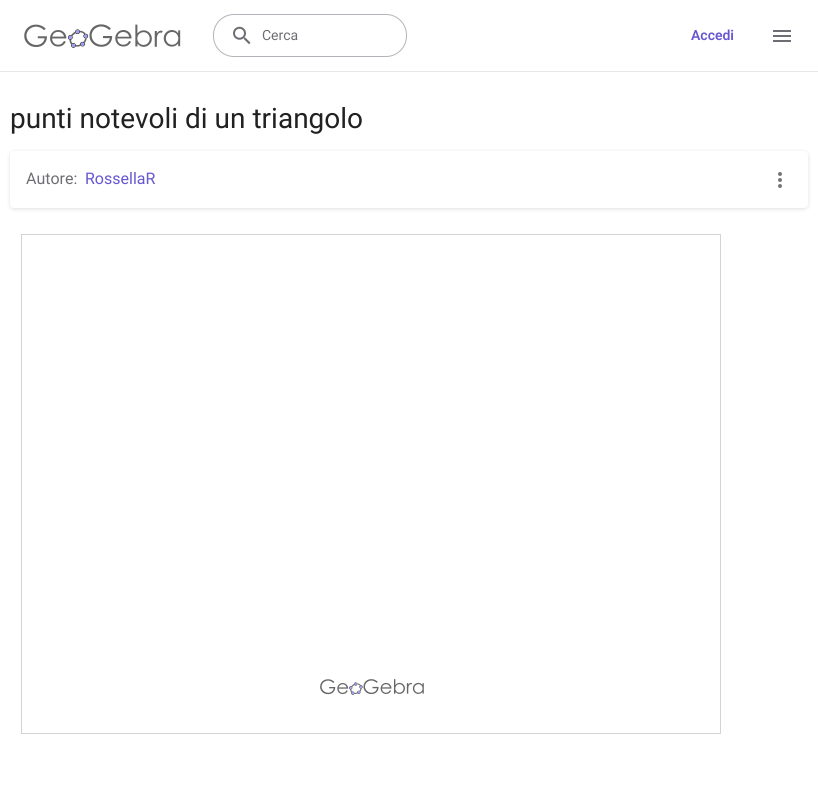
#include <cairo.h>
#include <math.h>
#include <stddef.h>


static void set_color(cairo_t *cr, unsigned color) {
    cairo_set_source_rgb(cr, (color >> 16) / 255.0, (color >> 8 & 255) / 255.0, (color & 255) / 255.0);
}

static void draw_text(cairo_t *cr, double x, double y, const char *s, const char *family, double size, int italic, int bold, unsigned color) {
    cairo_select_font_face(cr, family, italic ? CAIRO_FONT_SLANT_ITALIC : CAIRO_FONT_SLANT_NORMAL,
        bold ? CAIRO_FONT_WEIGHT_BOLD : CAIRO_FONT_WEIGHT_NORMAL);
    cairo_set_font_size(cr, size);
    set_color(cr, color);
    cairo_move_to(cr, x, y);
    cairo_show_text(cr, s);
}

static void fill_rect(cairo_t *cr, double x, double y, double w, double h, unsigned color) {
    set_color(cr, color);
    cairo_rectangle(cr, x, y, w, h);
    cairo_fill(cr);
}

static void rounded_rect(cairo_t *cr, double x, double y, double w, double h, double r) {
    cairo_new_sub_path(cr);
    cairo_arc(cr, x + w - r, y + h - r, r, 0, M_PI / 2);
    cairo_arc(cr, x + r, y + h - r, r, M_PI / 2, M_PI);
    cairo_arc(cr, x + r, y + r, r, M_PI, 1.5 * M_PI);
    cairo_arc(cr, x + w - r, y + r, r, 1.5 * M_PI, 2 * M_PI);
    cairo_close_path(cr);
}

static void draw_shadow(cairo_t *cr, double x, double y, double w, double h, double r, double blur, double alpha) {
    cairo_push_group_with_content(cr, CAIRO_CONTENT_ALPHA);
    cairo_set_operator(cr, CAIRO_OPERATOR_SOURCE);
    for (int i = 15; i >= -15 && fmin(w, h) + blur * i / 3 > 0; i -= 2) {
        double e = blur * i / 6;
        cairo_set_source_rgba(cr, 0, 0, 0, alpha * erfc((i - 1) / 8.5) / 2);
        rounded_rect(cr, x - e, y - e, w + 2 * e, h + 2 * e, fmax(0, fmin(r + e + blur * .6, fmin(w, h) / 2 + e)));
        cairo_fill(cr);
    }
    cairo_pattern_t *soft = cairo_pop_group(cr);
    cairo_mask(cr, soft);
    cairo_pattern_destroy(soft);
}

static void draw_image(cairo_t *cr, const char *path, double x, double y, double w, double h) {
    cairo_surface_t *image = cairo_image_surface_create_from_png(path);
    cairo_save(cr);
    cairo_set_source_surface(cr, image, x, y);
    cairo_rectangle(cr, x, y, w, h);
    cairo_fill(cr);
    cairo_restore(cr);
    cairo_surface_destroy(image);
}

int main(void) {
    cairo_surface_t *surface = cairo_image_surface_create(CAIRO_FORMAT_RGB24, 818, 806);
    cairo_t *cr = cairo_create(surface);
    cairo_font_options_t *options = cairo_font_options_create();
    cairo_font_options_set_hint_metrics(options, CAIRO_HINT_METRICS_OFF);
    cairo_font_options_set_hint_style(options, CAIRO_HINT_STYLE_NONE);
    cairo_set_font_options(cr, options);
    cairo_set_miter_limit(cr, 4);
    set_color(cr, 0xFFFFFF);
    cairo_paint(cr);
    fill_rect(cr, 0, 71, 818, 1, 0xE6E6EB);
    draw_image(cr, "assets/img1.png", 24, 24, 157, 24);
    rounded_rect(cr, 213.5, 14.5, 193, 42, 20.5);
    set_color(cr, 0xB4B3BA);
    cairo_set_line_width(cr, 1);
    cairo_stroke(cr);
    draw_image(cr, "assets/img2.png", 233, 26, 18, 19);
    draw_text(cr, 262, 40, "Cerca", "Roboto", 14, 0, 0, 0x6E6D73);
    draw_text(cr, 691, 40, "Accedi", "Roboto SemiBold", 14, 0, 0, 0x6557D2);
    draw_image(cr, "assets/img3.png", 773, 30, 18, 12);
    draw_text(cr, 10, 128, "punti notevoli di un triangolo", "Roboto", 28, 0, 0, 0x212121);
    set_color(cr, 0x1C1C1F);
    draw_shadow(cr, 10, 152, 798, 57, 4, 2, 0.14);
    set_color(cr, 0xFFFFFF);
    rounded_rect(cr, 10, 151, 798, 57, 4);
    cairo_fill(cr);
    draw_text(cr, 26, 184, "Autore:", "Roboto", 16, 0, 0, 0x6E6D73);
    draw_text(cr, 85, 184, "RossellaR", "Roboto", 16, 0, 0, 0x6557D2);
    draw_image(cr, "assets/img4.png", 778, 172, 4, 16);
    draw_image(cr, "assets/img5.png", 320, 679, 104, 16);
    cairo_rectangle(cr, 21.5, 234.5, 699, 499);
    set_color(cr, 0xD3D3D3);
    cairo_stroke(cr);
    cairo_surface_write_to_png(surface, "output.png");
    cairo_font_options_destroy(options);
    cairo_destroy(cr);
    cairo_surface_destroy(surface);
    return 0;
}
